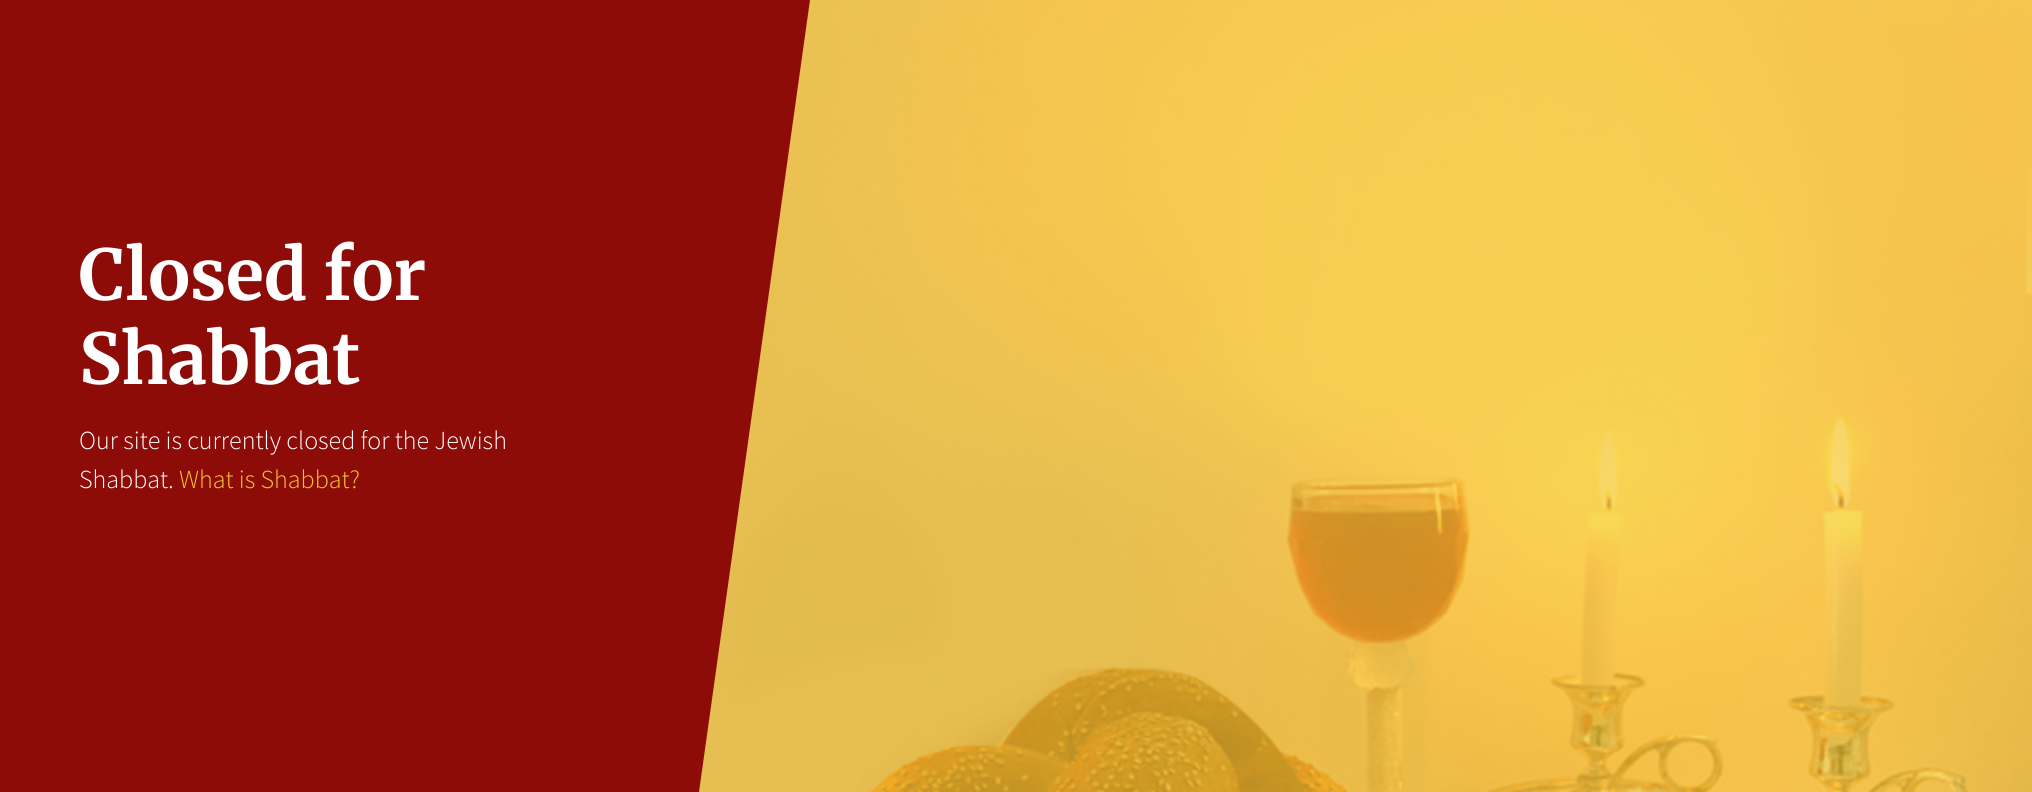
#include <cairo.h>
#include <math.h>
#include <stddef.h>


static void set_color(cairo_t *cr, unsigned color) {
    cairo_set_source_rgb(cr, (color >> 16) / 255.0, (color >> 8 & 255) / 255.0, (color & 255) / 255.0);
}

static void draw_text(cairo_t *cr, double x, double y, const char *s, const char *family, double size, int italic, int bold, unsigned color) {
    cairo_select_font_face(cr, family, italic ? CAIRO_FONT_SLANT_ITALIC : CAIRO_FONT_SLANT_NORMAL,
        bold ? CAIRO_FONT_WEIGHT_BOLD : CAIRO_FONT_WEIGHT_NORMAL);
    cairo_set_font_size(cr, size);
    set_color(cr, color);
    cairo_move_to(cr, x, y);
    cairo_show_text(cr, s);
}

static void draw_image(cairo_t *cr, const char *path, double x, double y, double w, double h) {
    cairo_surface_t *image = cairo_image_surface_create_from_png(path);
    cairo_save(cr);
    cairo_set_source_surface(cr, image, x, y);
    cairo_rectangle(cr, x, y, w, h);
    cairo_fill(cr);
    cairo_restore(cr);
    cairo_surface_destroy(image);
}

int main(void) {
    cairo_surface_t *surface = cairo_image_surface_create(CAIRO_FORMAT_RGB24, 2032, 792);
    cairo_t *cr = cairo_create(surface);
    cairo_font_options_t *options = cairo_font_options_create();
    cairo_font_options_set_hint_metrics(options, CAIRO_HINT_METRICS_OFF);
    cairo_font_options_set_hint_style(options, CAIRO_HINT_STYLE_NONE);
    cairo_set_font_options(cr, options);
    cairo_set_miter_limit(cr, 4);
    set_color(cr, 0xFFFFFF);
    cairo_paint(cr);
    draw_image(cr, "assets/img1.png", 0, 0, 2032, 792);
    cairo_set_source_rgba(cr, 0.541, 0.016, 0.02, 0.95);
    cairo_new_path(cr);
    cairo_move_to(cr, 0, 0);
    cairo_line_to(cr, 810, 0);
    cairo_line_to(cr, 699, 792);
    cairo_line_to(cr, -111, 792);
    cairo_close_path(cr);
    cairo_fill(cr);
    draw_text(cr, 79, 300, "Closed for", "Merriweather", 70, 0, 1, 0xFFFFFF);
    draw_text(cr, 79, 384, "Shabbat", "Merriweather", 70, 0, 1, 0xFFFFFF);
    draw_text(cr, 79, 449, "Our site is currently closed for the Jewish", "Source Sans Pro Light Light", 26, 0, 0, 0xFFFFFF);
    draw_text(cr, 79, 488, "Shabbat.", "Source Sans Pro Light Light", 26, 0, 0, 0xFFFFFF);
    draw_text(cr, 179, 488, "What is Shabbat?", "Source Sans Pro Light Light", 26, 0, 0, 0xF6C932);
    cairo_surface_write_to_png(surface, "output.png");
    cairo_font_options_destroy(options);
    cairo_destroy(cr);
    cairo_surface_destroy(surface);
    return 0;
}
